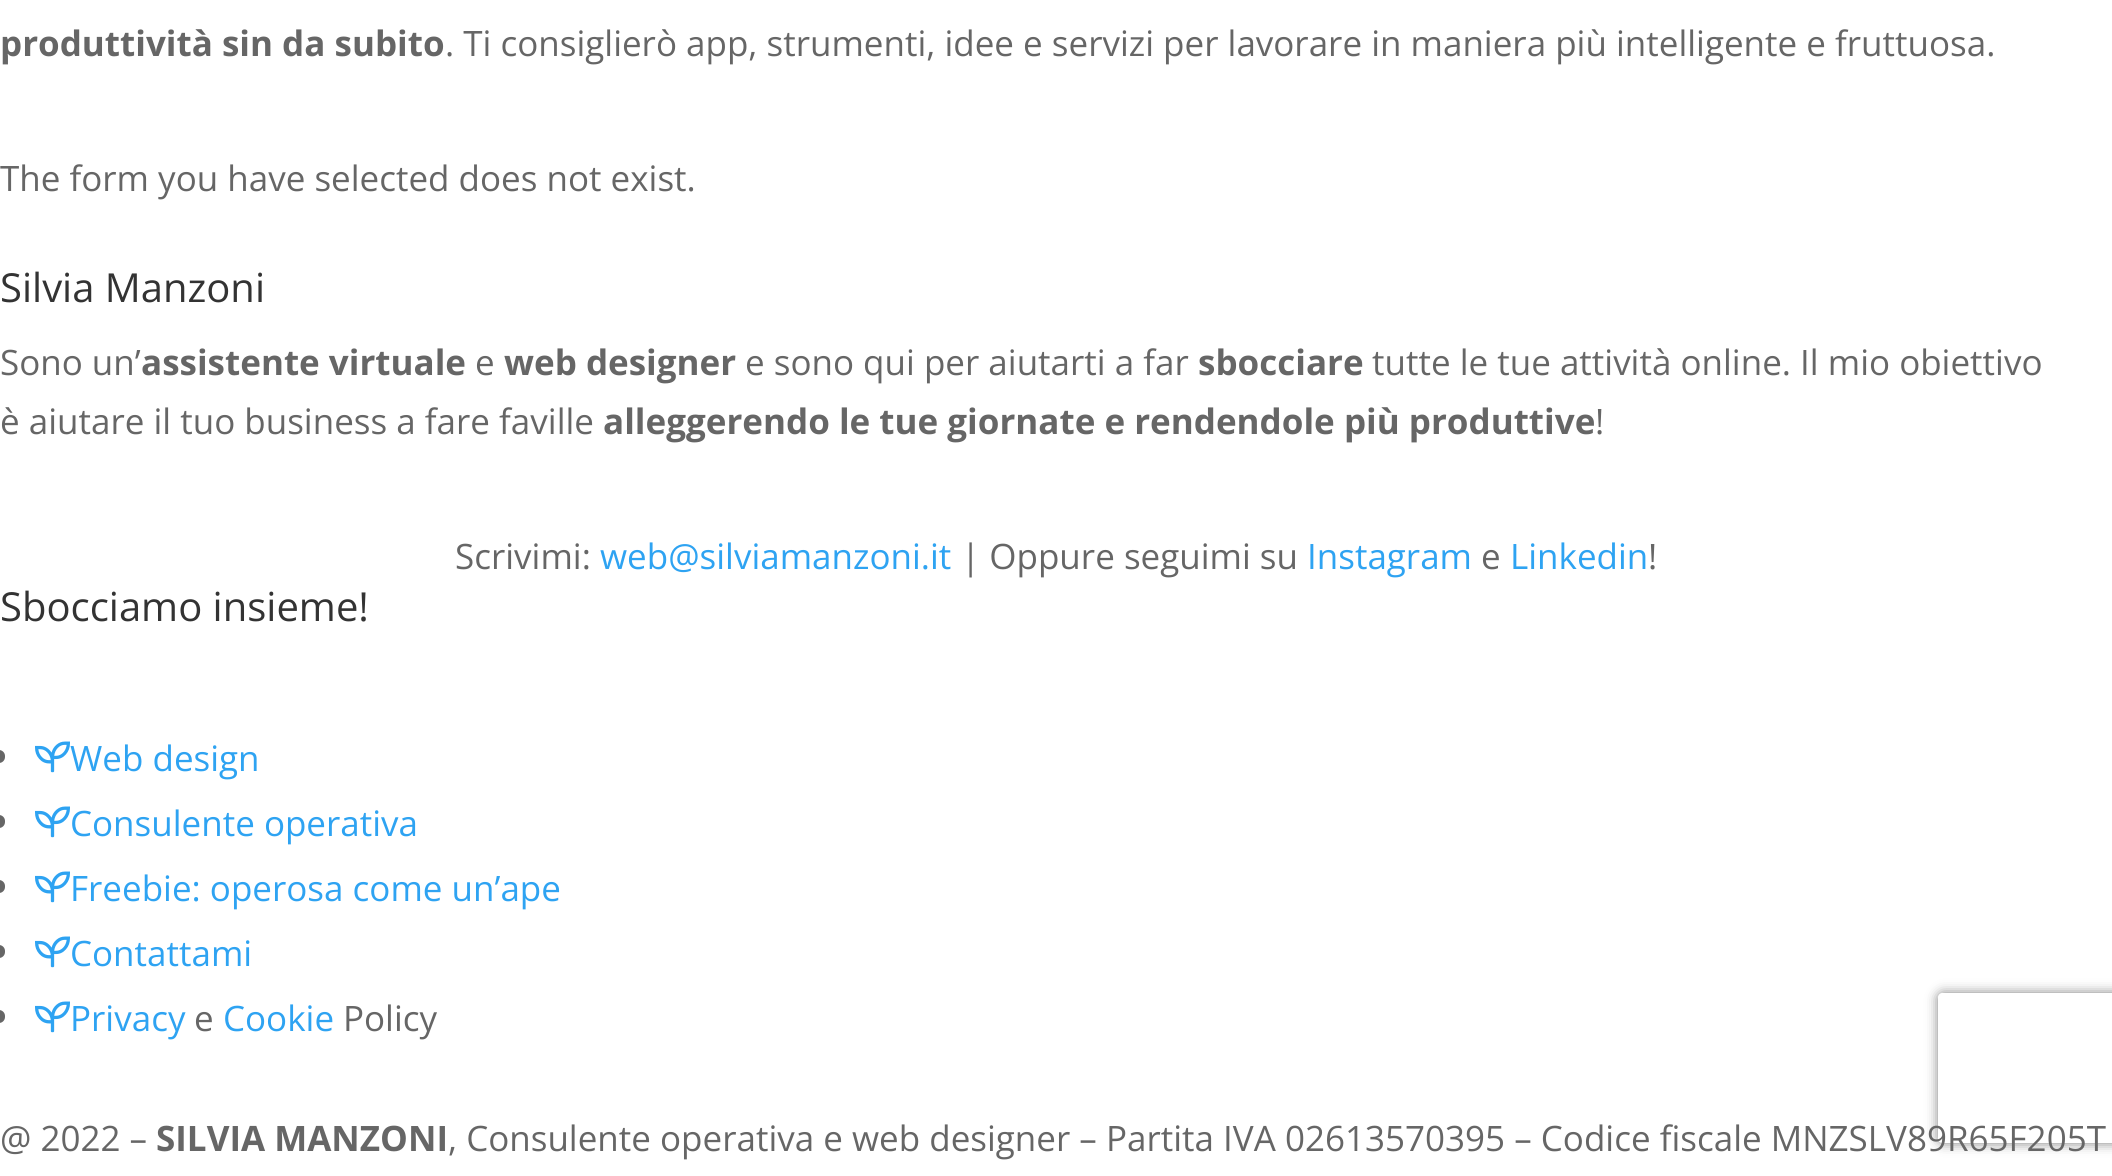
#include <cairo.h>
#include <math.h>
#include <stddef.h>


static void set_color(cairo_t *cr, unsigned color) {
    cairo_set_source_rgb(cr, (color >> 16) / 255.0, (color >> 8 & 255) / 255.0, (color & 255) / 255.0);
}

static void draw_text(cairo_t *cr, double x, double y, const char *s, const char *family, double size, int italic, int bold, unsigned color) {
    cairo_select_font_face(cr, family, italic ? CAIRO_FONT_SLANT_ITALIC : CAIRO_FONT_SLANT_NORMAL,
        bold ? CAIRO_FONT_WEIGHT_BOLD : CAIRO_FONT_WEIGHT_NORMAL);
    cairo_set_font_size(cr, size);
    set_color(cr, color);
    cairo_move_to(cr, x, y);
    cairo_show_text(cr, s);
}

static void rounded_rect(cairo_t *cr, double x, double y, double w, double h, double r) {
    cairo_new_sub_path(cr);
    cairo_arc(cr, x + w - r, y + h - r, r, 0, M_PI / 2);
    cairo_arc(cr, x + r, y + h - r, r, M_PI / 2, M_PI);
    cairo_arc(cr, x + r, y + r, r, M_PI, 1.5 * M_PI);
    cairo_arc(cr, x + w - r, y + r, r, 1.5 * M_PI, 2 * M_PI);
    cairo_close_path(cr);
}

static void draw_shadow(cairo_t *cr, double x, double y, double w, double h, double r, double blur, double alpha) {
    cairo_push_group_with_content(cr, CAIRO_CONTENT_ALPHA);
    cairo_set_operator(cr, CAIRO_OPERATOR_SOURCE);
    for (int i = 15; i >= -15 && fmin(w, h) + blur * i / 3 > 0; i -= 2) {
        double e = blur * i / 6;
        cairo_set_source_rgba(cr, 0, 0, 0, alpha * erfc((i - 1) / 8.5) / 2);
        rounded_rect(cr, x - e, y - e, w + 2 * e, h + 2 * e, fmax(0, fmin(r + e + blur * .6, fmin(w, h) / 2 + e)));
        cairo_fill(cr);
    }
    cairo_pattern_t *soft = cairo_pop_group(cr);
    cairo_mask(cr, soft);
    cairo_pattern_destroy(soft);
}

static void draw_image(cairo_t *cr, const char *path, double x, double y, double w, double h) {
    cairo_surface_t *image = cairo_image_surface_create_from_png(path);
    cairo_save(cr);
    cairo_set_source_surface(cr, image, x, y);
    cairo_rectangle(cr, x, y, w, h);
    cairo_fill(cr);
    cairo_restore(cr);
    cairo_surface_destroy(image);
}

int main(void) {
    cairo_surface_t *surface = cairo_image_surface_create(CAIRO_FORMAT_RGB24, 2112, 1176);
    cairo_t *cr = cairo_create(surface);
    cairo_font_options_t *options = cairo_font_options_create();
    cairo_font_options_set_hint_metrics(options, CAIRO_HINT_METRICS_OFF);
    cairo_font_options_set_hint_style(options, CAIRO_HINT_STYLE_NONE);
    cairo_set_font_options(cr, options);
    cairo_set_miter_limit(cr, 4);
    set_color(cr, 0xFFFFFF);
    cairo_paint(cr);
    draw_text(cr, 0, 56, "produttività sin da subito", "Open Sans", 35, 0, 1, 0x666666);
    draw_text(cr, 445, 56, ". Ti consiglierò app, strumenti, idee e servizi per lavorare in maniera più intelligente e fruttuosa.", "Open Sans", 35, 0, 0, 0x666666);
    draw_text(cr, 0, 191, "The form you have selected does not exist.", "Open Sans", 35, 0, 0, 0x666666);
    draw_text(cr, 0, 302, "Silvia Manzoni", "Open Sans", 40, 0, 0, 0x333333);
    draw_text(cr, 0, 375, "Sono un’", "Open Sans", 35, 0, 0, 0x666666);
    draw_text(cr, 141, 375, "assistente virtuale", "Open Sans", 35, 0, 1, 0x666666);
    draw_text(cr, 475, 375, "e", "Open Sans", 35, 0, 0, 0x666666);
    draw_text(cr, 504, 375, "web designer", "Open Sans", 35, 0, 1, 0x666666);
    draw_text(cr, 745, 375, "e sono qui per aiutarti a far", "Open Sans", 35, 0, 0, 0x666666);
    draw_text(cr, 1198, 375, "sbocciare", "Open Sans", 35, 0, 1, 0x666666);
    draw_text(cr, 1372, 375, "tutte le tue attività online. Il mio obiettivo", "Open Sans", 35, 0, 0, 0x666666);
    draw_text(cr, 0, 434, "è aiutare il tuo business a fare faville", "Open Sans", 35, 0, 0, 0x666666);
    draw_text(cr, 603, 434, "alleggerendo le tue giornate e rendendole più produttive", "Open Sans", 35, 0, 1, 0x666666);
    draw_text(cr, 1595, 434, "!", "Open Sans", 35, 0, 0, 0x666666);
    draw_text(cr, 455, 569, "Scrivimi:", "Open Sans", 35, 0, 0, 0x666666);
    draw_text(cr, 600, 569, "web@silviamanzoni.it", "Open Sans", 35, 0, 0, 0x2EA3F2);
    draw_text(cr, 961, 569, "| Oppure seguimi su", "Open Sans", 35, 0, 0, 0x666666);
    draw_text(cr, 1307, 569, "Instagram", "Open Sans", 35, 0, 0, 0x2EA3F2);
    draw_text(cr, 1481, 569, "e", "Open Sans", 35, 0, 0, 0x666666);
    draw_text(cr, 1510, 569, "Linkedin", "Open Sans", 35, 0, 0, 0x2EA3F2);
    draw_text(cr, 1648, 569, "!", "Open Sans", 35, 0, 0, 0x666666);
    draw_text(cr, 0, 621, "Sbocciamo insieme!", "Open Sans", 40, 0, 0, 0x333333);
    set_color(cr, 0x666666);
    rounded_rect(cr, -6, 750, 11, 13, 6);
    cairo_fill(cr);
    draw_image(cr, "assets/img1.png", 35, 741, 35, 32);
    draw_text(cr, 70, 771, "Web design", "Open Sans", 35, 0, 0, 0x2EA3F2);
    set_color(cr, 0x666666);
    rounded_rect(cr, -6, 815, 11, 13, 6);
    cairo_fill(cr);
    draw_image(cr, "assets/img1.png", 35, 806, 35, 32);
    draw_text(cr, 70, 836, "Consulente operativa", "Open Sans", 35, 0, 0, 0x2EA3F2);
    set_color(cr, 0x666666);
    rounded_rect(cr, -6, 880, 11, 13, 6);
    cairo_fill(cr);
    draw_image(cr, "assets/img1.png", 35, 871, 35, 32);
    draw_text(cr, 70, 901, "Freebie: operosa come un’ape", "Open Sans", 35, 0, 0, 0x2EA3F2);
    set_color(cr, 0x666666);
    rounded_rect(cr, -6, 945, 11, 13, 6);
    cairo_fill(cr);
    draw_image(cr, "assets/img1.png", 35, 936, 35, 32);
    draw_text(cr, 70, 966, "Contattami", "Open Sans", 35, 0, 0, 0x2EA3F2);
    set_color(cr, 0x666666);
    rounded_rect(cr, -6, 1010, 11, 13, 6);
    cairo_fill(cr);
    draw_image(cr, "assets/img1.png", 35, 1001, 35, 32);
    draw_text(cr, 70, 1031, "Privacy", "Open Sans", 35, 0, 0, 0x2EA3F2);
    draw_text(cr, 194, 1031, "e", "Open Sans", 35, 0, 0, 0x666666);
    draw_text(cr, 223, 1031, "Cookie", "Open Sans", 35, 0, 0, 0x2EA3F2);
    draw_text(cr, 343, 1031, "Policy", "Open Sans", 35, 0, 0, 0x666666);
    draw_text(cr, 0, 1151, "@ 2022 –", "Open Sans", 35, 0, 0, 0x666666);
    draw_text(cr, 156, 1151, "SILVIA MANZONI", "Open Sans", 35, 0, 1, 0x666666);
    cairo_save(cr);
    cairo_set_fill_rule(cr, CAIRO_FILL_RULE_EVEN_ODD);
    cairo_new_path(cr);
    cairo_move_to(cr, 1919, 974);
    cairo_line_to(cr, 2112, 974);
    cairo_line_to(cr, 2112, 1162);
    cairo_line_to(cr, 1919, 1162);
    cairo_close_path(cr);
    cairo_move_to(cr, 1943, 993);
    cairo_line_to(cr, 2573, 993);
    cairo_curve_to(cr, 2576, 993, 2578, 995, 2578, 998);
    cairo_line_to(cr, 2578, 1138);
    cairo_curve_to(cr, 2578, 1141, 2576, 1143, 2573, 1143);
    cairo_line_to(cr, 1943, 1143);
    cairo_curve_to(cr, 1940, 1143, 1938, 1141, 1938, 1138);
    cairo_line_to(cr, 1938, 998);
    cairo_curve_to(cr, 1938, 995, 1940, 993, 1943, 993);
    cairo_close_path(cr);
    cairo_clip(cr);
    set_color(cr, 0x808080);
    draw_shadow(cr, 1938, 993, 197, 150, 5, 6, 1);
    cairo_restore(cr);
    draw_text(cr, 448, 1151, ", Consulente operativa e web designer – Partita IVA 02613570395 – Codice fiscale MNZSLV89R65F205T", "Open Sans", 35, 0, 0, 0x666666);
    cairo_surface_write_to_png(surface, "output.png");
    cairo_font_options_destroy(options);
    cairo_destroy(cr);
    cairo_surface_destroy(surface);
    return 0;
}
